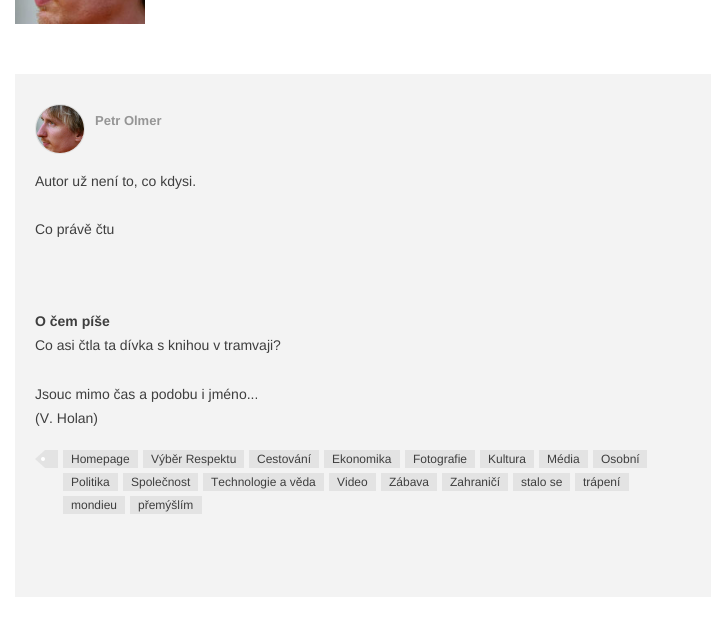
#include <cairo.h>
#include <math.h>
#include <stddef.h>


static void set_color(cairo_t *cr, unsigned color) {
    cairo_set_source_rgb(cr, (color >> 16) / 255.0, (color >> 8 & 255) / 255.0, (color & 255) / 255.0);
}

static void draw_text(cairo_t *cr, double x, double y, const char *s, const char *family, double size, int italic, int bold, unsigned color) {
    cairo_select_font_face(cr, family, italic ? CAIRO_FONT_SLANT_ITALIC : CAIRO_FONT_SLANT_NORMAL,
        bold ? CAIRO_FONT_WEIGHT_BOLD : CAIRO_FONT_WEIGHT_NORMAL);
    cairo_set_font_size(cr, size);
    set_color(cr, color);
    cairo_move_to(cr, x, y);
    cairo_show_text(cr, s);
}

static void fill_rect(cairo_t *cr, double x, double y, double w, double h, unsigned color) {
    set_color(cr, color);
    cairo_rectangle(cr, x, y, w, h);
    cairo_fill(cr);
}

static void draw_image(cairo_t *cr, const char *path, double x, double y, double w, double h) {
    cairo_surface_t *image = cairo_image_surface_create_from_png(path);
    cairo_save(cr);
    cairo_set_source_surface(cr, image, x, y);
    cairo_rectangle(cr, x, y, w, h);
    cairo_fill(cr);
    cairo_restore(cr);
    cairo_surface_destroy(image);
}

int main(void) {
    cairo_surface_t *surface = cairo_image_surface_create(CAIRO_FORMAT_RGB24, 726, 635);
    cairo_t *cr = cairo_create(surface);
    cairo_font_options_t *options = cairo_font_options_create();
    cairo_font_options_set_hint_metrics(options, CAIRO_HINT_METRICS_OFF);
    cairo_font_options_set_hint_style(options, CAIRO_HINT_STYLE_NONE);
    cairo_set_font_options(cr, options);
    cairo_set_miter_limit(cr, 4);
    set_color(cr, 0xFFFFFF);
    cairo_paint(cr);
    draw_image(cr, "assets/img1.png", 15, 0, 130, 24);
    fill_rect(cr, 15, 74, 696, 523, 0xF3F3F3);
    cairo_arc(cr, 60, 129, 24.5, 0, 2 * M_PI);
    set_color(cr, 0xE0E0E0);
    cairo_set_line_width(cr, 1);
    cairo_stroke(cr);
    draw_image(cr, "assets/img2.png", 36, 105, 48, 48);
    draw_text(cr, 95, 125, "Petr Olmer", "Liberation Sans", 13, 0, 1, 0x959595);
    draw_text(cr, 35, 186, "Autor už není to, co kdysi.", "Liberation Sans", 14, 0, 0, 0x3E3E3E);
    draw_text(cr, 35, 234, "Co právě čtu", "Liberation Sans", 14, 0, 0, 0x3E3E3E);
    draw_text(cr, 35, 326, "O čem píše", "Liberation Sans", 14, 0, 1, 0x3E3E3E);
    draw_text(cr, 35, 350, "Co asi čtla ta dívka s knihou v tramvaji?", "Liberation Sans", 14, 0, 0, 0x3E3E3E);
    draw_text(cr, 35, 399, "Jsouc mimo čas a podobu i jméno...", "Liberation Sans", 14, 0, 0, 0x3E3E3E);
    draw_text(cr, 35, 423, "(V. Holan)", "Liberation Sans", 14, 0, 0, 0x3E3E3E);
    fill_rect(cr, 45, 450, 13, 18, 0xE3E3E3);
    cairo_new_path(cr);
    cairo_move_to(cr, 45, 450);
    cairo_line_to(cr, 45, 468);
    cairo_line_to(cr, 35, 459);
    cairo_close_path(cr);
    cairo_fill(cr);
    set_color(cr, 0xFFFFFF);
    cairo_arc(cr, 43, 459, 2, 0, 2 * M_PI);
    cairo_fill(cr);
    fill_rect(cr, 63, 450, 75, 18, 0xE3E3E3);
    draw_text(cr, 71, 463, "Homepage", "Liberation Sans", 12, 0, 0, 0x3E3E3E);
    fill_rect(cr, 143, 450, 101, 18, 0xE3E3E3);
    draw_text(cr, 151, 463, "Výběr Respektu", "Liberation Sans", 12, 0, 0, 0x3E3E3E);
    fill_rect(cr, 249, 450, 70, 18, 0xE3E3E3);
    draw_text(cr, 257, 463, "Cestování", "Liberation Sans", 12, 0, 0, 0x3E3E3E);
    fill_rect(cr, 324, 450, 76, 18, 0xE3E3E3);
    draw_text(cr, 332, 463, "Ekonomika", "Liberation Sans", 12, 0, 0, 0x3E3E3E);
    fill_rect(cr, 405, 450, 70, 18, 0xE3E3E3);
    draw_text(cr, 413, 463, "Fotografie", "Liberation Sans", 12, 0, 0, 0x3E3E3E);
    fill_rect(cr, 480, 450, 54, 18, 0xE3E3E3);
    draw_text(cr, 488, 463, "Kultura", "Liberation Sans", 12, 0, 0, 0x3E3E3E);
    fill_rect(cr, 539, 450, 49, 18, 0xE3E3E3);
    draw_text(cr, 547, 463, "Média", "Liberation Sans", 12, 0, 0, 0x3E3E3E);
    fill_rect(cr, 593, 450, 54, 18, 0xE3E3E3);
    draw_text(cr, 601, 463, "Osobní", "Liberation Sans", 12, 0, 0, 0x3E3E3E);
    fill_rect(cr, 63, 473, 55, 18, 0xE3E3E3);
    draw_text(cr, 71, 486, "Politika", "Liberation Sans", 12, 0, 0, 0x3E3E3E);
    fill_rect(cr, 123, 473, 75, 18, 0xE3E3E3);
    draw_text(cr, 131, 486, "Společnost", "Liberation Sans", 12, 0, 0, 0x3E3E3E);
    fill_rect(cr, 203, 473, 121, 18, 0xE3E3E3);
    draw_text(cr, 211, 486, "Technologie a věda", "Liberation Sans", 12, 0, 0, 0x3E3E3E);
    fill_rect(cr, 329, 473, 47, 18, 0xE3E3E3);
    draw_text(cr, 337, 486, "Video", "Liberation Sans", 12, 0, 0, 0x3E3E3E);
    fill_rect(cr, 381, 473, 56, 18, 0xE3E3E3);
    draw_text(cr, 389, 486, "Zábava", "Liberation Sans", 12, 0, 0, 0x3E3E3E);
    fill_rect(cr, 442, 473, 66, 18, 0xE3E3E3);
    draw_text(cr, 450, 486, "Zahraničí", "Liberation Sans", 12, 0, 0, 0x3E3E3E);
    fill_rect(cr, 513, 473, 57, 18, 0xE3E3E3);
    draw_text(cr, 521, 486, "stalo se", "Liberation Sans", 12, 0, 0, 0x3E3E3E);
    fill_rect(cr, 575, 473, 54, 18, 0xE3E3E3);
    draw_text(cr, 583, 486, "trápení", "Liberation Sans", 12, 0, 0, 0x3E3E3E);
    fill_rect(cr, 63, 496, 62, 18, 0xE3E3E3);
    draw_text(cr, 71, 509, "mondieu", "Liberation Sans", 12, 0, 0, 0x3E3E3E);
    fill_rect(cr, 130, 496, 72, 18, 0xE3E3E3);
    draw_text(cr, 138, 509, "přemýšlím", "Liberation Sans", 12, 0, 0, 0x3E3E3E);
    cairo_surface_write_to_png(surface, "output.png");
    cairo_font_options_destroy(options);
    cairo_destroy(cr);
    cairo_surface_destroy(surface);
    return 0;
}
